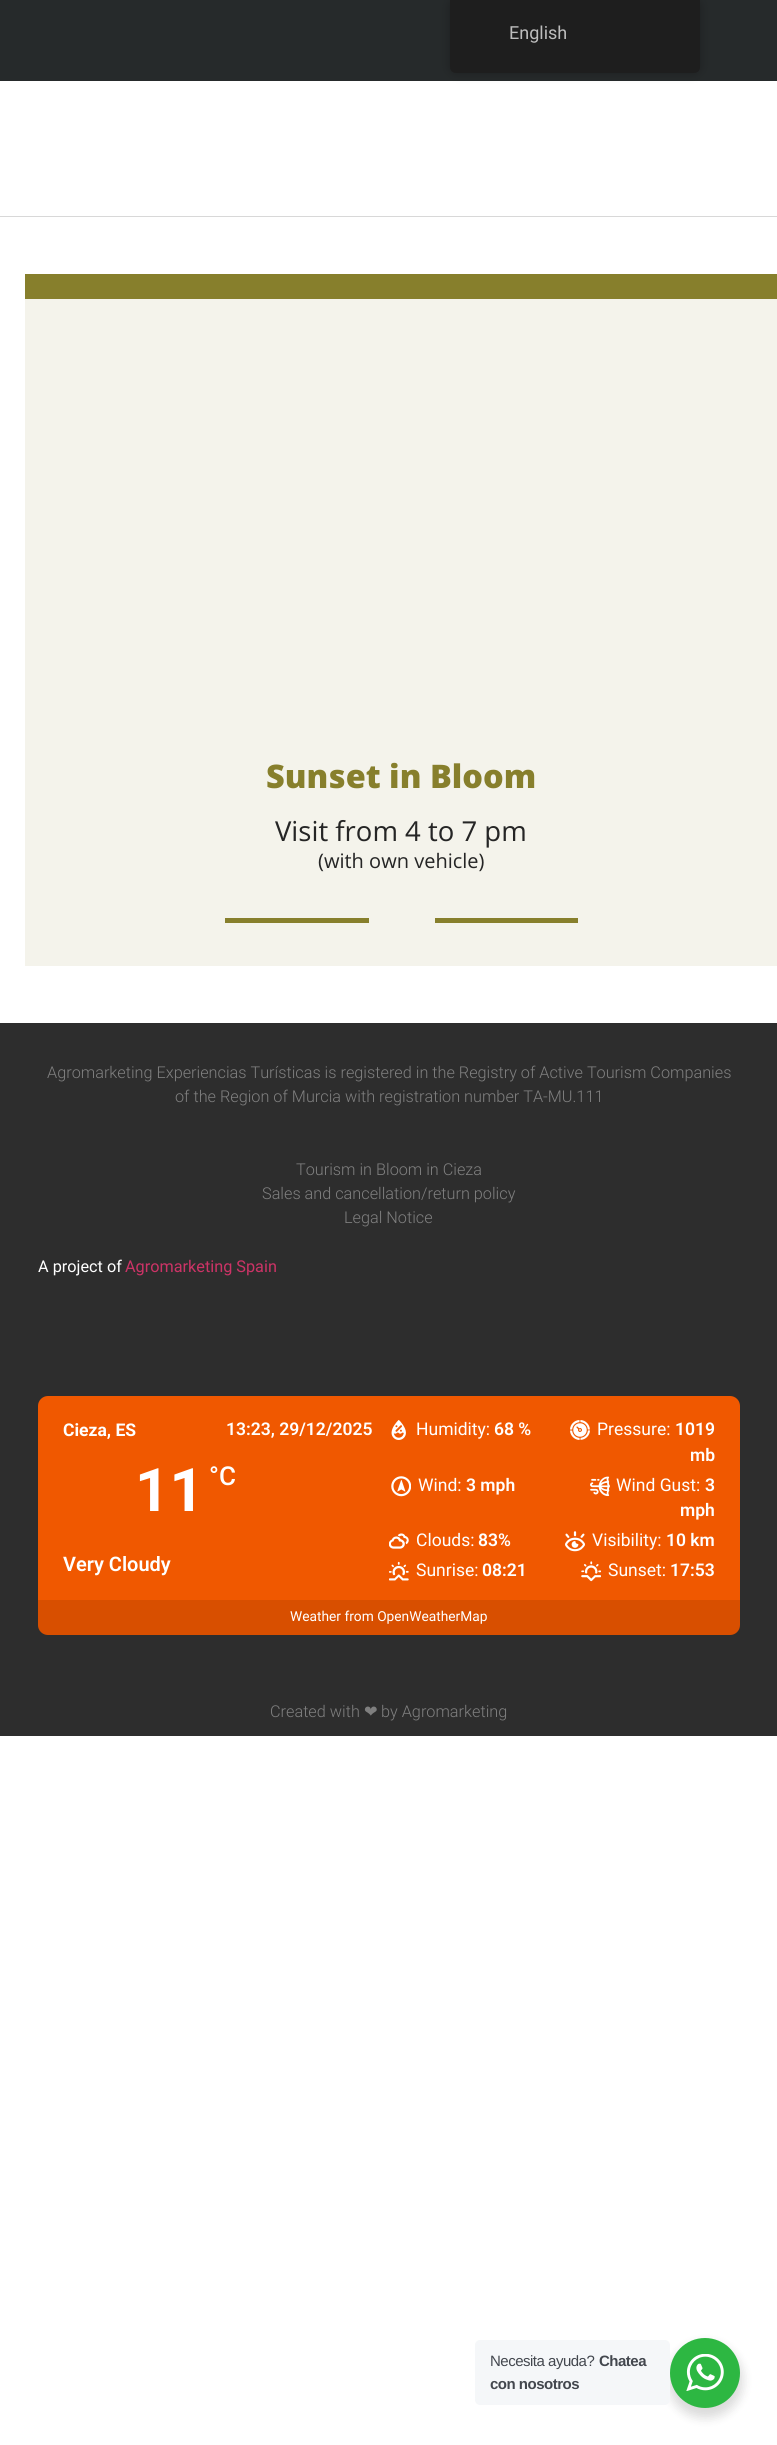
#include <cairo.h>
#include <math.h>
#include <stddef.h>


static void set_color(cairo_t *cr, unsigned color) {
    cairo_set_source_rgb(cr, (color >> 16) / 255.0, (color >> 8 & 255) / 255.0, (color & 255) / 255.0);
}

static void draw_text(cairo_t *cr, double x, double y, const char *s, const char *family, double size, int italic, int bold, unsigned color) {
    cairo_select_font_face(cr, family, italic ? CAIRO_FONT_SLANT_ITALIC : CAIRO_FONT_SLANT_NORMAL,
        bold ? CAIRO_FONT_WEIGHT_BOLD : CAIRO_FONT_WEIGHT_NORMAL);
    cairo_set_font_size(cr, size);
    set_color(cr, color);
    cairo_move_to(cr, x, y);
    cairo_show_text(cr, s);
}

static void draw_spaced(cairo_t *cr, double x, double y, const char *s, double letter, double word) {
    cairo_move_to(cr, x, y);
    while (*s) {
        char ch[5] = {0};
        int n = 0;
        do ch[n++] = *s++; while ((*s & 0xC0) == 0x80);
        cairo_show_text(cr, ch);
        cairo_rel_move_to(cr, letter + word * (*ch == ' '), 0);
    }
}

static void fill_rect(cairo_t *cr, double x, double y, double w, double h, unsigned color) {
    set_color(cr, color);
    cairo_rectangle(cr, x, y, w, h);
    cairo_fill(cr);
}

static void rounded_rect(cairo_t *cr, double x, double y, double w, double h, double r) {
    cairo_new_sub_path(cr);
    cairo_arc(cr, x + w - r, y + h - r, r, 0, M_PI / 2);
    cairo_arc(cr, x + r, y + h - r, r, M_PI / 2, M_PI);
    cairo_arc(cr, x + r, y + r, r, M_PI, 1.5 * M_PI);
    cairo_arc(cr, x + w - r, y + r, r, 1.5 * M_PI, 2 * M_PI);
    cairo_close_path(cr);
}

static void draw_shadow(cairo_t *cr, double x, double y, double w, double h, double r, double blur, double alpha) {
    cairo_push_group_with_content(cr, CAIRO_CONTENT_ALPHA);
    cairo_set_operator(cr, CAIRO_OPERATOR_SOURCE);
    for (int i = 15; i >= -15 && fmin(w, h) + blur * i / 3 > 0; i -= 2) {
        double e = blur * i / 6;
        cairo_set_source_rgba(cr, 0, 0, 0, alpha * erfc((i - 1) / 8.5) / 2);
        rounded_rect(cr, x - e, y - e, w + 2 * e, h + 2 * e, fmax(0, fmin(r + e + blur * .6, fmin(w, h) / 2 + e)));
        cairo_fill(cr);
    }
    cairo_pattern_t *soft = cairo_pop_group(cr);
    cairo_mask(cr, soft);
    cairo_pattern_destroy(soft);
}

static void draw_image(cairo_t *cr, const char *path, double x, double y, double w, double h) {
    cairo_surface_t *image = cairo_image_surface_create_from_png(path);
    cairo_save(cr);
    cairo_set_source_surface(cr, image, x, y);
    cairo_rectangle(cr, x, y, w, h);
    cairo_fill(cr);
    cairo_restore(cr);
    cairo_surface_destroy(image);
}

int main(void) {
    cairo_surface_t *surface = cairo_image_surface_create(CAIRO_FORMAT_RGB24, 777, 2445);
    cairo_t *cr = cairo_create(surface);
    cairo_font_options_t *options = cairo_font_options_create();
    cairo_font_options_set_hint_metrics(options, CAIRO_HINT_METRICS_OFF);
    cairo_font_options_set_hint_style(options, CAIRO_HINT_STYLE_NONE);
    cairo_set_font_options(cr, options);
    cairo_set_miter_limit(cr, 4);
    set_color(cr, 0xFFFFFF);
    cairo_paint(cr);
    fill_rect(cr, 0, 0, 777, 81, 0x262A2B);
    fill_rect(cr, 0, 216, 777, 1, 0xD8D8D8);
    set_color(cr, 0x000000);
    draw_shadow(cr, 450, 0, 250, 73, 6, 5, 0.25);
    set_color(cr, 0x1E1E1E);
    cairo_new_path(cr);
    cairo_move_to(cr, 450, 0);
    cairo_line_to(cr, 700, 0);
    cairo_line_to(cr, 700, 67);
    cairo_curve_to(cr, 700, 70.5, 697.5, 73, 694, 73);
    cairo_line_to(cr, 456, 73);
    cairo_curve_to(cr, 452.5, 73, 450, 70.5, 450, 67);
    cairo_close_path(cr);
    cairo_fill(cr);
    draw_text(cr, 509, 39, "English", "Roboto", 18, 0, 0, 0xBDBDBD);
    fill_rect(cr, 25, 299, 752, 667, 0xF4F3EB);
    fill_rect(cr, 25, 274, 752, 25, 0x877F2C);
    draw_text(cr, 266, 788, "Sunset in Bloom", "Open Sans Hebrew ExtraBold", 32.5, 0, 0, 0x877F2C);
    draw_text(cr, 275, 841, "Visit from 4 to 7 pm", "Open Sans Hebrew", 27.5, 0, 0, 0x252525);
    draw_text(cr, 318, 868, "(with own vehicle)", "Open Sans Hebrew", 20, 0, 0, 0x252525);
    fill_rect(cr, 225, 918, 144, 5, 0x877F2C);
    fill_rect(cr, 435, 918, 143, 5, 0x877F2C);
    fill_rect(cr, 0, 1023, 777, 713, 0x2D2D2D);
    draw_text(cr, 47, 1078, "Agromarketing Experiencias Turísticas is registered in the Registry of Active Tourism Companies", "Roboto Light", 16.25, 0, 0, 0x7F7F7F);
    draw_text(cr, 175, 1102, "of the Region of Murcia with registration number TA-MU.111", "Roboto Light", 16.25, 0, 0, 0x7F7F7F);
    draw_text(cr, 296, 1175, "Tourism in Bloom in Cieza", "Roboto Light", 16.25, 0, 0, 0x7F7F7F);
    draw_text(cr, 262, 1199, "Sales and cancellation/return policy", "Roboto Light", 16.25, 0, 0, 0x7F7F7F);
    draw_text(cr, 344, 1223, "Legal Notice", "Roboto Light", 16.25, 0, 0, 0x7F7F7F);
    draw_text(cr, 38, 1272, "A project of", "Roboto", 16.25, 0, 0, 0xFFFFFF);
    draw_text(cr, 125, 1272, "Agromarketing Spain", "Roboto", 16.25, 0, 0, 0xCC3366);
    set_color(cr, 0xF05800);
    rounded_rect(cr, 38, 1396, 702, 239, 10);
    cairo_fill(cr);
    draw_text(cr, 63, 1436, "Cieza, ES", "Roboto", 17.5, 0, 1, 0xFFFFFF);
    draw_text(cr, 226, 1435, "13:23, 29/12/2025", "Roboto SemiBold", 17.5, 0, 0, 0xFFFFFF);
    draw_text(cr, 135, 1511, "11", "Roboto", 60, 0, 1, 0xFFFFFF);
    draw_text(cr, 209, 1485, "°C", "Roboto Medium", 26, 0, 0, 0xFFFFFF);
    draw_text(cr, 63, 1571, "Very Cloudy", "Roboto SemiBold", 20, 0, 0, 0xFFFFFF);
    draw_image(cr, "assets/img1.png", 391, 1420, 15, 20);
    draw_text(cr, 416, 1435, "Humidity:", "Roboto", 17.5, 0, 0, 0xFFFFFF);
    draw_text(cr, 494, 1435, "68 %", "Roboto SemiBold", 17.5, 0, 0, 0xFFFFFF);
    draw_image(cr, "assets/img2.png", 570, 1420, 20, 20);
    draw_text(cr, 597, 1435, "Pressure:", "Roboto", 17.5, 0, 0, 0xFFFFFF);
    draw_text(cr, 675, 1435, "1019", "Roboto SemiBold", 17.5, 0, 0, 0xFFFFFF);
    draw_text(cr, 690, 1461, "mb", "Roboto SemiBold", 17.5, 0, 0, 0xFFFFFF);
    draw_image(cr, "assets/img3.png", 391, 1476, 20, 21);
    draw_text(cr, 418, 1491, "Wind:", "Roboto", 17.5, 0, 0, 0xFFFFFF);
    draw_text(cr, 466, 1491, "3 mph", "Roboto SemiBold", 17.5, 0, 0, 0xFFFFFF);
    draw_image(cr, "assets/img4.png", 590, 1476, 20, 21);
    draw_text(cr, 616, 1491, "Wind Gust:", "Roboto", 17.5, 0, 0, 0xFFFFFF);
    draw_text(cr, 705, 1491, "3", "Roboto SemiBold", 17.5, 0, 0, 0xFFFFFF);
    draw_text(cr, 680, 1516, "mph", "Roboto SemiBold", 17.5, 0, 0, 0xFFFFFF);
    draw_image(cr, "assets/img5.png", 389, 1533, 20, 16);
    draw_text(cr, 416, 1546, "Clouds:", "Roboto", 17.5, 0, 0, 0xFFFFFF);
    draw_text(cr, 478, 1546, "83%", "Roboto SemiBold", 17.5, 0, 0, 0xFFFFFF);
    draw_image(cr, "assets/img6.png", 565, 1531, 20, 21);
    draw_text(cr, 592, 1546, "Visibility:", "Roboto", 17.5, 0, 0, 0xFFFFFF);
    draw_text(cr, 666, 1546, "10 km", "Roboto SemiBold", 17.5, 0, 0, 0xFFFFFF);
    draw_image(cr, "assets/img7.png", 389, 1561, 20, 20);
    draw_text(cr, 416, 1576, "Sunrise:", "Roboto", 17.5, 0, 0, 0xFFFFFF);
    draw_text(cr, 482, 1576, "08:21", "Roboto SemiBold", 17.5, 0, 0, 0xFFFFFF);
    draw_image(cr, "assets/img8.png", 581, 1561, 20, 21);
    draw_text(cr, 608, 1576, "Sunset:", "Roboto", 17.5, 0, 0, 0xFFFFFF);
    draw_text(cr, 670, 1576, "17:53", "Roboto SemiBold", 17.5, 0, 0, 0xFFFFFF);
    cairo_set_source_rgba(cr, 0, 0, 0, 0.1);
    cairo_new_path(cr);
    cairo_move_to(cr, 38, 1600);
    cairo_line_to(cr, 740, 1600);
    cairo_line_to(cr, 740, 1625);
    cairo_curve_to(cr, 740, 1630.5, 735.5, 1635, 730, 1635);
    cairo_line_to(cr, 48, 1635);
    cairo_curve_to(cr, 42.5, 1635, 38, 1630.5, 38, 1625);
    cairo_close_path(cr);
    cairo_fill(cr);
    draw_text(cr, 290, 1621, "Weather from OpenWeatherMap", "Roboto", 13.75, 0, 0, 0xFFFFFF);
    draw_text(cr, 270, 1717, "Created with", "Roboto Light", 16.25, 0, 0, 0x7F7F7F);
    draw_text(cr, 364, 1717, "❤", "DejaVu Sans", 16.25, 0, 0, 0x7F7F7F);
    draw_text(cr, 381, 1717, "by Agromarketing", "Roboto Light", 16.25, 0, 0, 0x7F7F7F);
    set_color(cr, 0x000000);
    draw_shadow(cr, 668, 2343, 75, 75, 37.5, 5, 0.14);
    set_color(cr, 0xF5F7F9);
    rounded_rect(cr, 475, 2340, 195, 65, 5);
    cairo_fill(cr);
    cairo_select_font_face(cr, "Liberation Sans", CAIRO_FONT_SLANT_NORMAL, CAIRO_FONT_WEIGHT_NORMAL);
    cairo_set_font_size(cr, 15);
    set_color(cr, 0x43474E);
    draw_spaced(cr, 490, 2366, "Necesita ayuda?", -0.5, 0);
    cairo_select_font_face(cr, "Liberation Sans", CAIRO_FONT_SLANT_NORMAL, CAIRO_FONT_WEIGHT_BOLD);
    draw_spaced(cr, 599, 2366, "Chatea", -0.5, 0);
    draw_spaced(cr, 490, 2389, "con nosotros", -0.5, 0);
    set_color(cr, 0x2DB742);
    cairo_new_path(cr);
    cairo_arc(cr, 705, 2373, 35, 0, 2 * M_PI);
    cairo_fill(cr);
    draw_image(cr, "assets/img9.png", 686, 2354, 38, 37);
    cairo_surface_write_to_png(surface, "output.png");
    cairo_font_options_destroy(options);
    cairo_destroy(cr);
    cairo_surface_destroy(surface);
    return 0;
}
